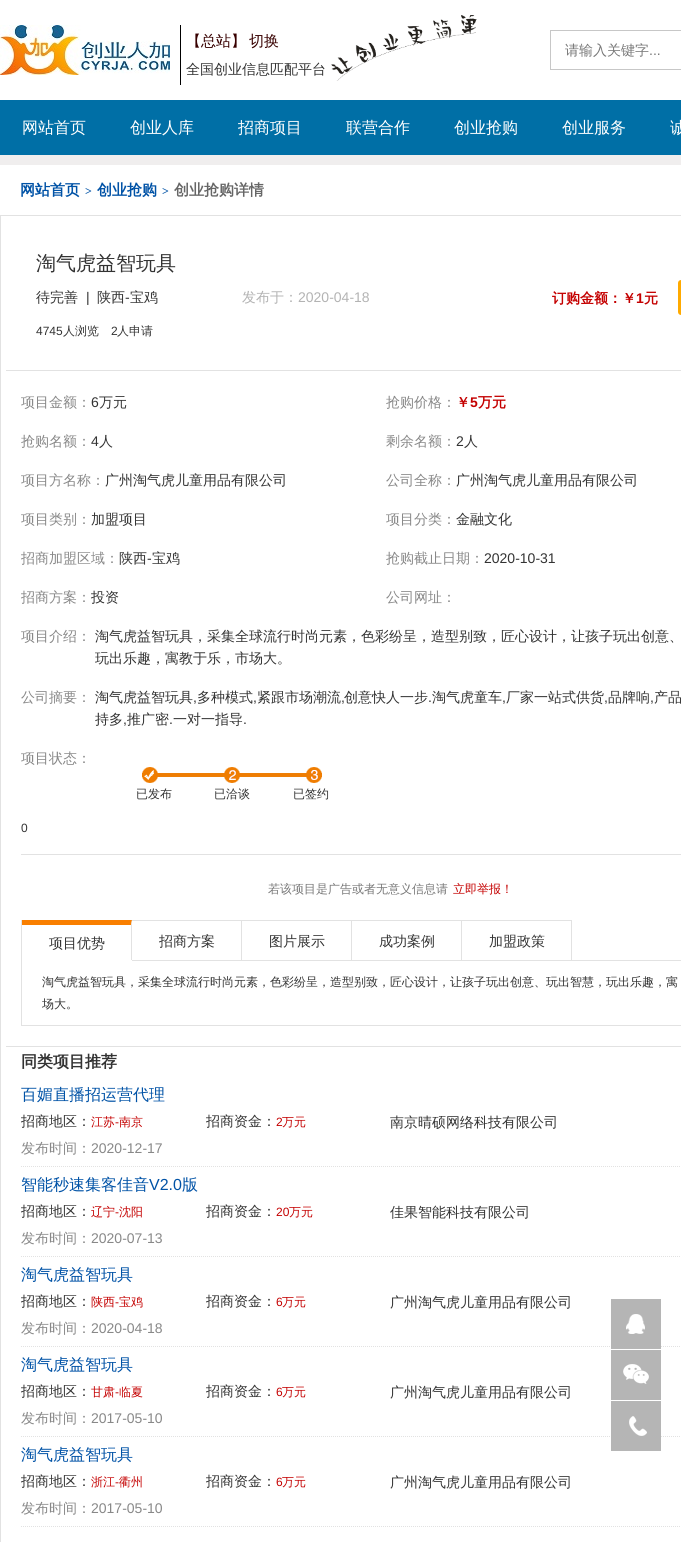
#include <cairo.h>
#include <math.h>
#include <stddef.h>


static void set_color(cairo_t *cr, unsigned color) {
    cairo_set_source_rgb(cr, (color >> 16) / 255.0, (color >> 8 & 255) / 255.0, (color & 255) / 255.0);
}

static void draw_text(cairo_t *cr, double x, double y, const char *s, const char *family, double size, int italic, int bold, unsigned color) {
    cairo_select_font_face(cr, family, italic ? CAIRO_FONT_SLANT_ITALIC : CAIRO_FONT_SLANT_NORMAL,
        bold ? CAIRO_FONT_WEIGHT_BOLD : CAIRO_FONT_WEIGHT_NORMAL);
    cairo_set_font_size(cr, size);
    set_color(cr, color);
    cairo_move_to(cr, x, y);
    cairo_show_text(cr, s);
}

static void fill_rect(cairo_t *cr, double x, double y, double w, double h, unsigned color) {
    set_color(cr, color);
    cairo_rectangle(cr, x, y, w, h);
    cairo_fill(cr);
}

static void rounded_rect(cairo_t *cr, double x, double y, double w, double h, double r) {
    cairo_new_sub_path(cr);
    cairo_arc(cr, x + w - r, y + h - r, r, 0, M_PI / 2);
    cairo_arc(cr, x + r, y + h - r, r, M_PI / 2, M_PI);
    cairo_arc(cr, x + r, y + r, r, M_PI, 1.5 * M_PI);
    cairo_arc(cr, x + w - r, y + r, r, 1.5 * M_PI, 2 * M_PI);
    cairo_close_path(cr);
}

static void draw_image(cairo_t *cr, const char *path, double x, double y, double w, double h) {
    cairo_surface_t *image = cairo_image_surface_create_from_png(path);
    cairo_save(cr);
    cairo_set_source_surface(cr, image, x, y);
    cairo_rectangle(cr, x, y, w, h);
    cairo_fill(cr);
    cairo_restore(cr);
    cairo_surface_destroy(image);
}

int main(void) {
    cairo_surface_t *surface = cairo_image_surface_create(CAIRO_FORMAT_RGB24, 681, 1542);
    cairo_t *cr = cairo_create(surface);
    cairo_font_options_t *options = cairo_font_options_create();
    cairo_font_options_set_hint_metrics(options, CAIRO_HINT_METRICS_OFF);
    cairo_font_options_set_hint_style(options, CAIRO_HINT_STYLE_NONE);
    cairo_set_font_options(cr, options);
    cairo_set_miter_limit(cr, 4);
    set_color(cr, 0xF0EEEE);
    cairo_paint(cr);
    fill_rect(cr, 0, 0, 681, 100, 0xFFFFFF);
    draw_image(cr, "assets/img1.png", 0, 25, 170, 50);
    fill_rect(cr, 180, 25, 1, 60, 0x000000);
    draw_text(cr, 186, 46, "【总站】", "WenQuanYi Zen Hei Medium", 15, 0, 0, 0x370000);
    draw_text(cr, 249, 46, "切换", "WenQuanYi Zen Hei Medium", 15, 0, 0, 0x370000);
    draw_image(cr, "assets/img2.png", 331, 15, 146, 66);
    draw_text(cr, 186, 74, "全国创业信息匹配平台", "WenQuanYi Zen Hei Medium", 14, 0, 0, 0x333333);
    fill_rect(cr, 550, 30, 131, 1, 0xC7C7C7);
    fill_rect(cr, 550, 69, 131, 1, 0xC7C7C7);
    fill_rect(cr, 550, 30, 1, 40, 0xC7C7C7);
    draw_text(cr, 565, 55, "请输入关键字", "WenQuanYi Zen Hei Medium", 14, 0, 0, 0x777777);
    draw_text(cr, 649, 55, "...", "Liberation Sans", 14, 0, 0, 0x777777);
    fill_rect(cr, 0, 100, 681, 55, 0x006FA6);
    draw_text(cr, 22, 133, "网站首页", "WenQuanYi Zen Hei Medium", 16, 0, 0, 0xFFFFFF);
    draw_text(cr, 130, 133, "创业人库", "WenQuanYi Zen Hei Medium", 16, 0, 0, 0xFFFFFF);
    draw_text(cr, 238, 133, "招商项目", "WenQuanYi Zen Hei Medium", 16, 0, 0, 0xFFFFFF);
    draw_text(cr, 346, 133, "联营合作", "WenQuanYi Zen Hei Medium", 16, 0, 0, 0xFFFFFF);
    draw_text(cr, 454, 133, "创业抢购", "WenQuanYi Zen Hei Medium", 16, 0, 0, 0xFFFFFF);
    draw_text(cr, 562, 133, "创业服务", "WenQuanYi Zen Hei Medium", 16, 0, 0, 0xFFFFFF);
    draw_text(cr, 670, 133, "诚", "WenQuanYi Zen Hei Medium", 16, 0, 0, 0xFFFFFF);
    fill_rect(cr, 0, 165, 681, 1377, 0xFFFFFF);
    draw_text(cr, 20, 195, "网站首页", "WenQuanYi Zen Hei", 15, 0, 1, 0x0052A6);
    draw_text(cr, 85, 195, ">", "Liberation Serif", 12, 0, 1, 0x0052A6);
    draw_text(cr, 97, 195, "创业抢购", "WenQuanYi Zen Hei", 15, 0, 1, 0x0052A6);
    draw_text(cr, 162, 195, ">", "Liberation Serif", 12, 0, 1, 0x0052A6);
    draw_text(cr, 174, 195, "创业抢购详情", "WenQuanYi Zen Hei", 15, 0, 1, 0x666666);
    cairo_rectangle(cr, 0.5, 215.5, 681, 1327);
    set_color(cr, 0xE2E2E2);
    cairo_set_line_width(cr, 1);
    cairo_stroke(cr);
    fill_rect(cr, 6, 370, 675, 1, 0xE2E2E2);
    draw_text(cr, 36, 270, "淘气虎益智玩具", "WenQuanYi Zen Hei Medium", 20, 0, 0, 0x333333);
    draw_text(cr, 36, 302, "待完善", "WenQuanYi Zen Hei Medium", 14, 0, 0, 0x333333);
    draw_text(cr, 86, 302, "|", "Liberation Sans", 14, 0, 0, 0x333333);
    draw_text(cr, 97, 302, "陕西", "WenQuanYi Zen Hei Medium", 14, 0, 0, 0x333333);
    draw_text(cr, 125, 302, "-", "Liberation Sans", 14, 0, 0, 0x333333);
    draw_text(cr, 130, 302, "宝鸡", "WenQuanYi Zen Hei Medium", 14, 0, 0, 0x333333);
    draw_text(cr, 242, 302, "发布于：", "WenQuanYi Zen Hei Medium", 14, 0, 0, 0xB3B3B3);
    draw_text(cr, 298, 302, "2020-04-18", "Liberation Sans", 14, 0, 0, 0xB3B3B3);
    draw_text(cr, 36, 335, "4745", "Liberation Sans", 12, 0, 0, 0x333333);
    draw_text(cr, 63, 335, "人浏览", "WenQuanYi Zen Hei Medium", 12, 0, 0, 0x333333);
    draw_text(cr, 111, 335, "2", "Liberation Sans", 12, 0, 0, 0x333333);
    draw_text(cr, 117, 335, "人申请", "WenQuanYi Zen Hei Medium", 12, 0, 0, 0x333333);
    draw_text(cr, 552, 303, "订购金额：￥", "WenQuanYi Zen Hei", 14, 0, 1, 0xC40000);
    draw_text(cr, 636, 303, "1", "Liberation Sans", 14, 0, 1, 0xC40000);
    draw_text(cr, 644, 303, "元", "WenQuanYi Zen Hei", 14, 0, 1, 0xC40000);
    set_color(cr, 0xFFAA00);
    rounded_rect(cr, 678, 280, 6, 35, 3);
    cairo_fill(cr);
    draw_text(cr, 21, 407, "项目金额：", "WenQuanYi Zen Hei Medium", 14, 0, 0, 0x888888);
    draw_text(cr, 91, 407, "6", "Liberation Sans", 14, 0, 0, 0x333333);
    draw_text(cr, 99, 407, "万元", "WenQuanYi Zen Hei Medium", 14, 0, 0, 0x333333);
    draw_text(cr, 386, 407, "抢购价格：", "WenQuanYi Zen Hei Medium", 14, 0, 0, 0x888888);
    draw_text(cr, 456, 407, "￥", "WenQuanYi Zen Hei", 14, 0, 1, 0xC40000);
    draw_text(cr, 470, 407, "5", "Liberation Sans", 14, 0, 1, 0xC40000);
    draw_text(cr, 478, 407, "万元", "WenQuanYi Zen Hei", 14, 0, 1, 0xC40000);
    draw_text(cr, 21, 446, "抢购名额：", "WenQuanYi Zen Hei Medium", 14, 0, 0, 0x888888);
    draw_text(cr, 91, 446, "4", "Liberation Sans", 14, 0, 0, 0x333333);
    draw_text(cr, 99, 446, "人", "WenQuanYi Zen Hei Medium", 14, 0, 0, 0x333333);
    draw_text(cr, 386, 446, "剩余名额：", "WenQuanYi Zen Hei Medium", 14, 0, 0, 0x888888);
    draw_text(cr, 456, 446, "2", "Liberation Sans", 14, 0, 0, 0x333333);
    draw_text(cr, 464, 446, "人", "WenQuanYi Zen Hei Medium", 14, 0, 0, 0x333333);
    draw_text(cr, 21, 485, "项目方名称：", "WenQuanYi Zen Hei Medium", 14, 0, 0, 0x888888);
    draw_text(cr, 105, 485, "广州淘气虎儿童用品有限公司", "WenQuanYi Zen Hei Medium", 14, 0, 0, 0x333333);
    draw_text(cr, 386, 485, "公司全称：", "WenQuanYi Zen Hei Medium", 14, 0, 0, 0x888888);
    draw_text(cr, 456, 485, "广州淘气虎儿童用品有限公司", "WenQuanYi Zen Hei Medium", 14, 0, 0, 0x333333);
    draw_text(cr, 21, 524, "项目类别：", "WenQuanYi Zen Hei Medium", 14, 0, 0, 0x888888);
    draw_text(cr, 91, 524, "加盟项目", "WenQuanYi Zen Hei Medium", 14, 0, 0, 0x333333);
    draw_text(cr, 386, 524, "项目分类：", "WenQuanYi Zen Hei Medium", 14, 0, 0, 0x888888);
    draw_text(cr, 456, 524, "金融文化", "WenQuanYi Zen Hei Medium", 14, 0, 0, 0x333333);
    draw_text(cr, 21, 563, "招商加盟区域：", "WenQuanYi Zen Hei Medium", 14, 0, 0, 0x888888);
    draw_text(cr, 119, 563, "陕西", "WenQuanYi Zen Hei Medium", 14, 0, 0, 0x333333);
    draw_text(cr, 147, 563, "-", "Liberation Sans", 14, 0, 0, 0x333333);
    draw_text(cr, 152, 563, "宝鸡", "WenQuanYi Zen Hei Medium", 14, 0, 0, 0x333333);
    draw_text(cr, 386, 563, "抢购截止日期：", "WenQuanYi Zen Hei Medium", 14, 0, 0, 0x888888);
    draw_text(cr, 484, 563, "2020-10-31", "Liberation Sans", 14, 0, 0, 0x333333);
    draw_text(cr, 21, 602, "招商方案：", "WenQuanYi Zen Hei Medium", 14, 0, 0, 0x888888);
    draw_text(cr, 91, 602, "投资", "WenQuanYi Zen Hei Medium", 14, 0, 0, 0x333333);
    draw_text(cr, 386, 602, "公司网址：", "WenQuanYi Zen Hei Medium", 14, 0, 0, 0x888888);
    draw_text(cr, 21, 641, "项目介绍：", "WenQuanYi Zen Hei Medium", 14, 0, 0, 0x888888);
    draw_text(cr, 95, 641, "淘气虎益智玩具，采集全球流行时尚元素，色彩纷呈，造型别致，匠心设计，让孩子玩出创意、", "WenQuanYi Zen Hei Medium", 14, 0, 0, 0x333333);
    draw_text(cr, 95, 663, "玩出乐趣，寓教于乐，市场大。", "WenQuanYi Zen Hei Medium", 14, 0, 0, 0x333333);
    draw_text(cr, 21, 702, "公司摘要：", "WenQuanYi Zen Hei Medium", 14, 0, 0, 0x888888);
    draw_text(cr, 95, 702, "淘气虎益智玩具", "WenQuanYi Zen Hei Medium", 14, 0, 0, 0x333333);
    draw_text(cr, 193, 702, ",", "Liberation Sans", 14, 0, 0, 0x333333);
    draw_text(cr, 197, 702, "多种模式", "WenQuanYi Zen Hei Medium", 14, 0, 0, 0x333333);
    draw_text(cr, 253, 702, ",", "Liberation Sans", 14, 0, 0, 0x333333);
    draw_text(cr, 257, 702, "紧跟市场潮流", "WenQuanYi Zen Hei Medium", 14, 0, 0, 0x333333);
    draw_text(cr, 341, 702, ",", "Liberation Sans", 14, 0, 0, 0x333333);
    draw_text(cr, 344, 702, "创意快人一步", "WenQuanYi Zen Hei Medium", 14, 0, 0, 0x333333);
    draw_text(cr, 428, 702, ".", "Liberation Sans", 14, 0, 0, 0x333333);
    draw_text(cr, 432, 702, "淘气虎童车", "WenQuanYi Zen Hei Medium", 14, 0, 0, 0x333333);
    draw_text(cr, 502, 702, ",", "Liberation Sans", 14, 0, 0, 0x333333);
    draw_text(cr, 506, 702, "厂家一站式供货", "WenQuanYi Zen Hei Medium", 14, 0, 0, 0x333333);
    draw_text(cr, 604, 702, ",", "Liberation Sans", 14, 0, 0, 0x333333);
    draw_text(cr, 608, 702, "品牌响", "WenQuanYi Zen Hei Medium", 14, 0, 0, 0x333333);
    draw_text(cr, 650, 702, ",", "Liberation Sans", 14, 0, 0, 0x333333);
    draw_text(cr, 654, 702, "产品", "WenQuanYi Zen Hei Medium", 14, 0, 0, 0x333333);
    draw_text(cr, 95, 724, "持多", "WenQuanYi Zen Hei Medium", 14, 0, 0, 0x333333);
    draw_text(cr, 123, 724, ",", "Liberation Sans", 14, 0, 0, 0x333333);
    draw_text(cr, 127, 724, "推广密", "WenQuanYi Zen Hei Medium", 14, 0, 0, 0x333333);
    draw_text(cr, 169, 724, ".", "Liberation Sans", 14, 0, 0, 0x333333);
    draw_text(cr, 173, 724, "一对一指导", "WenQuanYi Zen Hei Medium", 14, 0, 0, 0x333333);
    draw_text(cr, 243, 724, ".", "Liberation Sans", 14, 0, 0, 0x333333);
    draw_text(cr, 21, 763, "项目状态：", "WenQuanYi Zen Hei Medium", 14, 0, 0, 0x888888);
    draw_image(cr, "assets/img3.png", 142, 767, 60, 16);
    draw_image(cr, "assets/img4.png", 202, 767, 60, 16);
    draw_image(cr, "assets/img5.png", 262, 767, 60, 16);
    draw_text(cr, 136, 798, "已发布", "WenQuanYi Zen Hei Medium", 12, 0, 0, 0x333333);
    draw_text(cr, 214, 798, "已洽谈", "WenQuanYi Zen Hei Medium", 12, 0, 0, 0x333333);
    draw_text(cr, 293, 798, "已签约", "WenQuanYi Zen Hei Medium", 12, 0, 0, 0x333333);
    draw_text(cr, 21, 832, "0", "Liberation Sans", 12, 0, 0, 0x333333);
    fill_rect(cr, 21, 854, 660, 1, 0xE2E2E2);
    draw_text(cr, 268, 893, "若该项目是广告或者无意义信息请", "WenQuanYi Zen Hei Medium", 12, 0, 0, 0x777777);
    draw_text(cr, 453, 893, "立即举报！", "WenQuanYi Zen Hei Medium", 12, 0, 0, 0xC40000);
    fill_rect(cr, 132, 960, 549, 1, 0xE2E2E2);
    fill_rect(cr, 21, 920, 1, 41, 0xE2E2E2);
    set_color(cr, 0xF97F00);
    cairo_new_path(cr);
    cairo_move_to(cr, 22, 920);
    cairo_line_to(cr, 132, 920);
    cairo_line_to(cr, 131, 925);
    cairo_line_to(cr, 22, 925);
    cairo_close_path(cr);
    cairo_fill(cr);
    set_color(cr, 0xE2E2E2);
    cairo_new_path(cr);
    cairo_move_to(cr, 132, 920);
    cairo_line_to(cr, 132, 961);
    cairo_line_to(cr, 131, 960);
    cairo_line_to(cr, 131, 925);
    cairo_close_path(cr);
    cairo_fill(cr);
    fill_rect(cr, 131, 960, 1, 1, 0xFFFFFF);
    draw_text(cr, 49, 948, "项目优势", "WenQuanYi Zen Hei Medium", 14, 0, 0, 0x333333);
    fill_rect(cr, 132, 920, 440, 1, 0xE2E2E2);
    fill_rect(cr, 241, 920, 1, 40, 0xE2E2E2);
    draw_text(cr, 159, 946, "招商方案", "WenQuanYi Zen Hei Medium", 14, 0, 0, 0x333333);
    fill_rect(cr, 351, 920, 1, 40, 0xE2E2E2);
    draw_text(cr, 269, 946, "图片展示", "WenQuanYi Zen Hei Medium", 14, 0, 0, 0x333333);
    fill_rect(cr, 461, 920, 1, 40, 0xE2E2E2);
    draw_text(cr, 379, 946, "成功案例", "WenQuanYi Zen Hei Medium", 14, 0, 0, 0x333333);
    fill_rect(cr, 571, 920, 1, 40, 0xE2E2E2);
    draw_text(cr, 489, 946, "加盟政策", "WenQuanYi Zen Hei Medium", 14, 0, 0, 0x333333);
    fill_rect(cr, 21, 1025, 660, 1, 0xE2E2E2);
    fill_rect(cr, 21, 961, 1, 65, 0xE2E2E2);
    draw_text(cr, 42, 986, "淘气虎益智玩具，采集全球流行时尚元素，色彩纷呈，造型别致，匠心设计，让孩子玩出创意、玩出智慧，玩出乐趣，寓", "WenQuanYi Zen Hei Medium", 12, 0, 0, 0x333333);
    draw_text(cr, 42, 1008, "场大。", "WenQuanYi Zen Hei Medium", 12, 0, 0, 0x333333);
    fill_rect(cr, 6, 1046, 675, 1, 0xE2E2E2);
    draw_text(cr, 21, 1067, "同类项目推荐", "WenQuanYi Zen Hei", 16, 0, 1, 0x333333);
    cairo_new_path(cr);
    cairo_move_to(cr, 21, 1166.5);
    cairo_line_to(cr, 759, 1166.5);
    set_color(cr, 0xE2E2E2);
    cairo_set_dash(cr, (double[]){1, 1}, 2, 0);
    cairo_stroke(cr);
    draw_text(cr, 21, 1100, "百媚直播招运营代理", "WenQuanYi Zen Hei Medium", 16, 0, 0, 0x0052A6);
    draw_text(cr, 21, 1126, "招商地区：", "WenQuanYi Zen Hei Medium", 14, 0, 0, 0x333333);
    draw_text(cr, 91, 1126, "江苏", "WenQuanYi Zen Hei Medium", 12, 0, 0, 0xC40000);
    draw_text(cr, 115, 1126, "-", "Liberation Sans", 12, 0, 0, 0xC40000);
    draw_text(cr, 119, 1126, "南京", "WenQuanYi Zen Hei Medium", 12, 0, 0, 0xC40000);
    draw_text(cr, 206, 1126, "招商资金：", "WenQuanYi Zen Hei Medium", 14, 0, 0, 0x333333);
    draw_text(cr, 276, 1126, "2", "Liberation Sans", 12, 0, 0, 0xC40000);
    draw_text(cr, 282, 1126, "万元", "WenQuanYi Zen Hei Medium", 12, 0, 0, 0xC40000);
    draw_text(cr, 390, 1127, "南京晴硕网络科技有限公司", "WenQuanYi Zen Hei Medium", 14, 0, 0, 0x333333);
    draw_text(cr, 21, 1153, "发布时间：", "WenQuanYi Zen Hei Medium", 14, 0, 0, 0x888888);
    draw_text(cr, 91, 1153, "2020-12-17", "Liberation Sans", 14, 0, 0, 0x888888);
    cairo_new_path(cr);
    cairo_move_to(cr, 21, 1256.5);
    cairo_line_to(cr, 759, 1256.5);
    set_color(cr, 0xE2E2E2);
    cairo_stroke(cr);
    draw_text(cr, 21, 1190, "智能秒速集客佳音", "WenQuanYi Zen Hei Medium", 16, 0, 0, 0x0052A6);
    draw_text(cr, 149, 1190, "V2.0", "Liberation Sans", 16, 0, 0, 0x0052A6);
    draw_text(cr, 182, 1190, "版", "WenQuanYi Zen Hei Medium", 16, 0, 0, 0x0052A6);
    draw_text(cr, 21, 1216, "招商地区：", "WenQuanYi Zen Hei Medium", 14, 0, 0, 0x333333);
    draw_text(cr, 91, 1216, "辽宁", "WenQuanYi Zen Hei Medium", 12, 0, 0, 0xC40000);
    draw_text(cr, 115, 1216, "-", "Liberation Sans", 12, 0, 0, 0xC40000);
    draw_text(cr, 119, 1216, "沈阳", "WenQuanYi Zen Hei Medium", 12, 0, 0, 0xC40000);
    draw_text(cr, 206, 1216, "招商资金：", "WenQuanYi Zen Hei Medium", 14, 0, 0, 0x333333);
    draw_text(cr, 276, 1216, "20", "Liberation Sans", 12, 0, 0, 0xC40000);
    draw_text(cr, 289, 1216, "万元", "WenQuanYi Zen Hei Medium", 12, 0, 0, 0xC40000);
    draw_text(cr, 390, 1217, "佳果智能科技有限公司", "WenQuanYi Zen Hei Medium", 14, 0, 0, 0x333333);
    draw_text(cr, 21, 1243, "发布时间：", "WenQuanYi Zen Hei Medium", 14, 0, 0, 0x888888);
    draw_text(cr, 91, 1243, "2020-07-13", "Liberation Sans", 14, 0, 0, 0x888888);
    cairo_new_path(cr);
    cairo_move_to(cr, 21, 1346.5);
    cairo_line_to(cr, 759, 1346.5);
    set_color(cr, 0xE2E2E2);
    cairo_stroke(cr);
    draw_text(cr, 21, 1280, "淘气虎益智玩具", "WenQuanYi Zen Hei Medium", 16, 0, 0, 0x0052A6);
    draw_text(cr, 21, 1306, "招商地区：", "WenQuanYi Zen Hei Medium", 14, 0, 0, 0x333333);
    draw_text(cr, 91, 1306, "陕西", "WenQuanYi Zen Hei Medium", 12, 0, 0, 0xC40000);
    draw_text(cr, 115, 1306, "-", "Liberation Sans", 12, 0, 0, 0xC40000);
    draw_text(cr, 119, 1306, "宝鸡", "WenQuanYi Zen Hei Medium", 12, 0, 0, 0xC40000);
    draw_text(cr, 206, 1306, "招商资金：", "WenQuanYi Zen Hei Medium", 14, 0, 0, 0x333333);
    draw_text(cr, 276, 1306, "6", "Liberation Sans", 12, 0, 0, 0xC40000);
    draw_text(cr, 282, 1306, "万元", "WenQuanYi Zen Hei Medium", 12, 0, 0, 0xC40000);
    draw_text(cr, 390, 1307, "广州淘气虎儿童用品有限公司", "WenQuanYi Zen Hei Medium", 14, 0, 0, 0x333333);
    draw_text(cr, 21, 1333, "发布时间：", "WenQuanYi Zen Hei Medium", 14, 0, 0, 0x888888);
    draw_text(cr, 91, 1333, "2020-04-18", "Liberation Sans", 14, 0, 0, 0x888888);
    cairo_new_path(cr);
    cairo_move_to(cr, 21, 1436.5);
    cairo_line_to(cr, 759, 1436.5);
    set_color(cr, 0xE2E2E2);
    cairo_stroke(cr);
    draw_text(cr, 21, 1370, "淘气虎益智玩具", "WenQuanYi Zen Hei Medium", 16, 0, 0, 0x0052A6);
    draw_text(cr, 21, 1396, "招商地区：", "WenQuanYi Zen Hei Medium", 14, 0, 0, 0x333333);
    draw_text(cr, 91, 1396, "甘肃", "WenQuanYi Zen Hei Medium", 12, 0, 0, 0xC40000);
    draw_text(cr, 115, 1396, "-", "Liberation Sans", 12, 0, 0, 0xC40000);
    draw_text(cr, 119, 1396, "临夏", "WenQuanYi Zen Hei Medium", 12, 0, 0, 0xC40000);
    draw_text(cr, 206, 1396, "招商资金：", "WenQuanYi Zen Hei Medium", 14, 0, 0, 0x333333);
    draw_text(cr, 276, 1396, "6", "Liberation Sans", 12, 0, 0, 0xC40000);
    draw_text(cr, 282, 1396, "万元", "WenQuanYi Zen Hei Medium", 12, 0, 0, 0xC40000);
    draw_text(cr, 390, 1397, "广州淘气虎儿童用品有限公司", "WenQuanYi Zen Hei Medium", 14, 0, 0, 0x333333);
    draw_text(cr, 21, 1423, "发布时间：", "WenQuanYi Zen Hei Medium", 14, 0, 0, 0x888888);
    draw_text(cr, 91, 1423, "2017-05-10", "Liberation Sans", 14, 0, 0, 0x888888);
    cairo_new_path(cr);
    cairo_move_to(cr, 21, 1526.5);
    cairo_line_to(cr, 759, 1526.5);
    set_color(cr, 0xE2E2E2);
    cairo_stroke(cr);
    draw_text(cr, 21, 1460, "淘气虎益智玩具", "WenQuanYi Zen Hei Medium", 16, 0, 0, 0x0052A6);
    draw_text(cr, 21, 1486, "招商地区：", "WenQuanYi Zen Hei Medium", 14, 0, 0, 0x333333);
    draw_text(cr, 91, 1486, "浙江", "WenQuanYi Zen Hei Medium", 12, 0, 0, 0xC40000);
    draw_text(cr, 115, 1486, "-", "Liberation Sans", 12, 0, 0, 0xC40000);
    draw_text(cr, 119, 1486, "衢州", "WenQuanYi Zen Hei Medium", 12, 0, 0, 0xC40000);
    draw_text(cr, 206, 1486, "招商资金：", "WenQuanYi Zen Hei Medium", 14, 0, 0, 0x333333);
    draw_text(cr, 276, 1486, "6", "Liberation Sans", 12, 0, 0, 0xC40000);
    draw_text(cr, 282, 1486, "万元", "WenQuanYi Zen Hei Medium", 12, 0, 0, 0xC40000);
    draw_text(cr, 390, 1487, "广州淘气虎儿童用品有限公司", "WenQuanYi Zen Hei Medium", 14, 0, 0, 0x333333);
    draw_text(cr, 21, 1513, "发布时间：", "WenQuanYi Zen Hei Medium", 14, 0, 0, 0x888888);
    draw_text(cr, 91, 1513, "2017-05-10", "Liberation Sans", 14, 0, 0, 0x888888);
    draw_image(cr, "assets/img6.png", 611, 1299, 50, 50);
    draw_image(cr, "assets/img7.png", 611, 1350, 50, 50);
    draw_image(cr, "assets/img8.png", 611, 1401, 50, 50);
    cairo_surface_write_to_png(surface, "output.png");
    cairo_font_options_destroy(options);
    cairo_destroy(cr);
    cairo_surface_destroy(surface);
    return 0;
}
